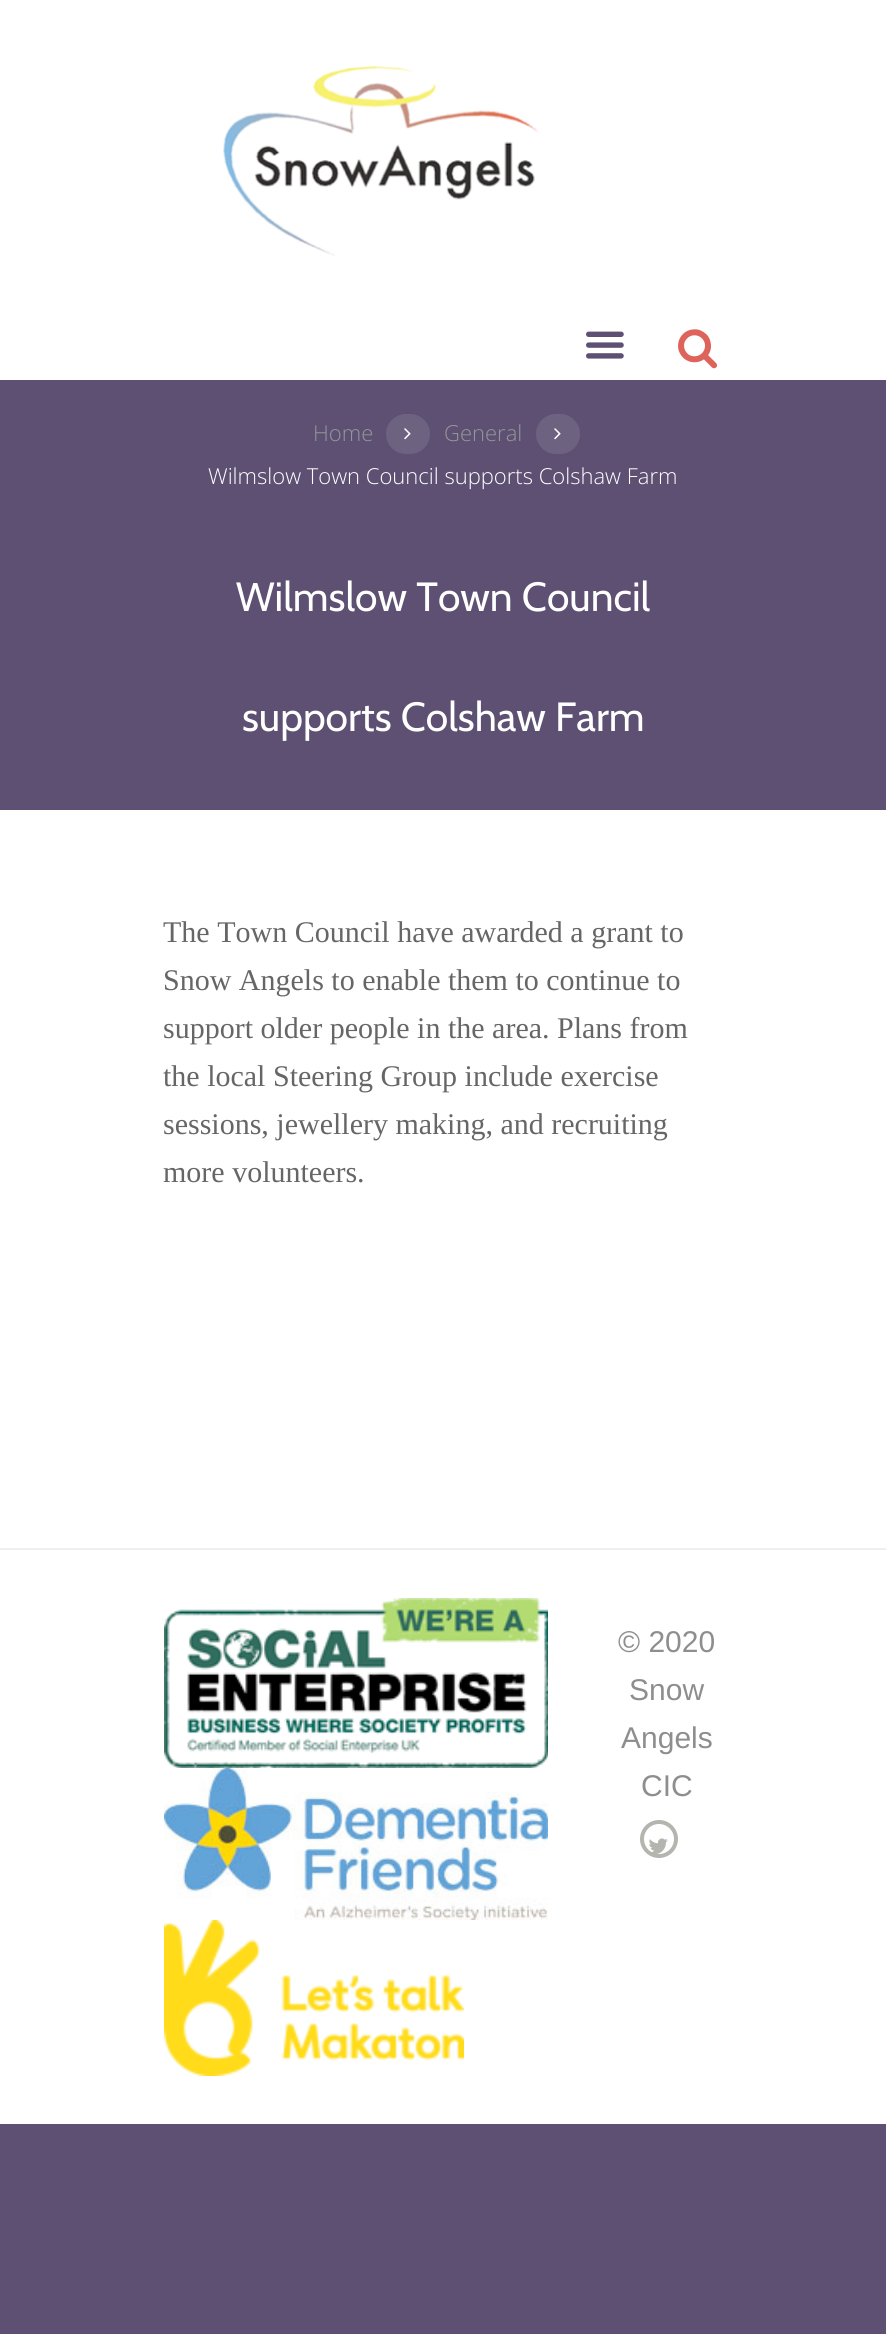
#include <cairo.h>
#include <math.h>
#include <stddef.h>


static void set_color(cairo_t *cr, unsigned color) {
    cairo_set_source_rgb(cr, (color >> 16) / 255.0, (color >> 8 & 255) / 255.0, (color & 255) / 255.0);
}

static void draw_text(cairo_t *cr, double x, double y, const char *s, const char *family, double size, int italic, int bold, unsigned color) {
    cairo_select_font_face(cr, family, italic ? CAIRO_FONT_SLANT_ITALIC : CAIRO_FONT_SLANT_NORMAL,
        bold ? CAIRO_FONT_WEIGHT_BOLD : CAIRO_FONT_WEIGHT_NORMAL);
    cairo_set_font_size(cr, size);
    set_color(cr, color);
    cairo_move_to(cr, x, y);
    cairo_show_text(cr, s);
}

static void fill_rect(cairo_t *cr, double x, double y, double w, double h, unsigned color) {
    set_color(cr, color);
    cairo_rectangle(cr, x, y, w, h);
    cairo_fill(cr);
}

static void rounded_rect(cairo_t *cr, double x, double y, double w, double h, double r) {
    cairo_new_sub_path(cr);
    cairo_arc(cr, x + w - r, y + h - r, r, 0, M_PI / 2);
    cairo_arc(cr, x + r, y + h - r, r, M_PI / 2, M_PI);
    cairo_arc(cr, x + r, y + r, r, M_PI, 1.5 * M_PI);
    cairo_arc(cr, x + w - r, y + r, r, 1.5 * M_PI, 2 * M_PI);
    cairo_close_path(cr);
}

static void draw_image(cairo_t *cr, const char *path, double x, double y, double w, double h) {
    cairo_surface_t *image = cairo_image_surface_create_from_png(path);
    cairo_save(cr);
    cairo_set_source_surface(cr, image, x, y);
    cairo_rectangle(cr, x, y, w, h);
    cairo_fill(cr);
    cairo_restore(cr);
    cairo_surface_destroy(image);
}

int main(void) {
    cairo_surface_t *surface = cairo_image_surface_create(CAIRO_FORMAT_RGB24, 886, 2334);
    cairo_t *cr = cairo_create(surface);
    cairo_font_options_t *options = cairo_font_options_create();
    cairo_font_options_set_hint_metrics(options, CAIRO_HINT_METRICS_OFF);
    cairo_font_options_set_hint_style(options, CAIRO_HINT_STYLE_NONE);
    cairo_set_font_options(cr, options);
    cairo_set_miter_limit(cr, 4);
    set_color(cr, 0x5D5072);
    cairo_paint(cr);
    fill_rect(cr, 0, 0, 886, 2124, 0xFFFFFF);
    draw_image(cr, "assets/img1.png", 223, 65, 316, 191);
    draw_image(cr, "assets/img2.png", 586, 331, 38, 28);
    draw_image(cr, "assets/img3.png", 678, 329, 39, 40);
    fill_rect(cr, 0, 380, 886, 430, 0x5D5072);
    draw_text(cr, 313, 441, "Home", "Open Sans Light", 22, 0, 0, 0x93979A);
    set_color(cr, 0x6D6280);
    rounded_rect(cr, 386, 414, 44, 40, 20);
    cairo_fill(cr);
    draw_image(cr, "assets/img4.png", 404, 428, 7, 12);
    draw_text(cr, 444, 441, "General", "Open Sans Light", 22, 0, 0, 0x93979A);
    set_color(cr, 0x6D6280);
    rounded_rect(cr, 536, 414, 44, 40, 20);
    cairo_fill(cr);
    draw_image(cr, "assets/img4.png", 554, 428, 7, 12);
    draw_text(cr, 208, 484, "Wilmslow Town Council supports Colshaw Farm", "Open Sans Light", 22, 0, 0, 0xFFFFFF);
    draw_text(cr, 236, 611, "Wilmslow Town Council", "Cabin", 40.75, 0, 0, 0xFFFFFF);
    draw_text(cr, 242, 731, "supports Colshaw Farm", "Cabin", 40.75, 0, 0, 0xFFFFFF);
    draw_text(cr, 163, 942, "The Town Council have awarded a grant to", "Liberation Serif", 30, 0, 0, 0x666666);
    draw_text(cr, 163, 990, "Snow Angels to enable them to continue to", "Liberation Serif", 30, 0, 0, 0x666666);
    draw_text(cr, 163, 1038, "support older people in the area. Plans from", "Liberation Serif", 30, 0, 0, 0x666666);
    draw_text(cr, 163, 1086, "the local Steering Group include exercise", "Liberation Serif", 30, 0, 0, 0x666666);
    draw_text(cr, 163, 1134, "sessions, jewellery making, and recruiting", "Liberation Serif", 30, 0, 0, 0x666666);
    draw_text(cr, 163, 1182, "more volunteers.", "Liberation Serif", 30, 0, 0, 0x666666);
    fill_rect(cr, 0, 1548, 886, 2, 0xEFEFEF);
    draw_image(cr, "assets/img5.png", 164, 1598, 384, 170);
    draw_image(cr, "assets/img6.png", 164, 1768, 384, 152);
    draw_image(cr, "assets/img7.png", 164, 1920, 300, 156);
    draw_text(cr, 618, 1652, "© 2020", "Liberation Sans", 30, 0, 0, 0x8E8E8E);
    draw_text(cr, 629, 1700, "Snow", "Liberation Sans", 30, 0, 0, 0x8E8E8E);
    draw_text(cr, 621, 1748, "Angels", "Liberation Sans", 30, 0, 0, 0x8E8E8E);
    draw_text(cr, 641, 1796, "CIC", "Liberation Sans", 30, 0, 0, 0x8E8E8E);
    cairo_new_path(cr);
    cairo_arc(cr, 659, 1839, 17, 0, 2 * M_PI);
    set_color(cr, 0xB5B5B0);
    cairo_set_line_width(cr, 4);
    cairo_stroke(cr);
    draw_image(cr, "assets/img8.png", 649, 1838, 19, 16);
    cairo_surface_write_to_png(surface, "output.png");
    cairo_font_options_destroy(options);
    cairo_destroy(cr);
    cairo_surface_destroy(surface);
    return 0;
}
